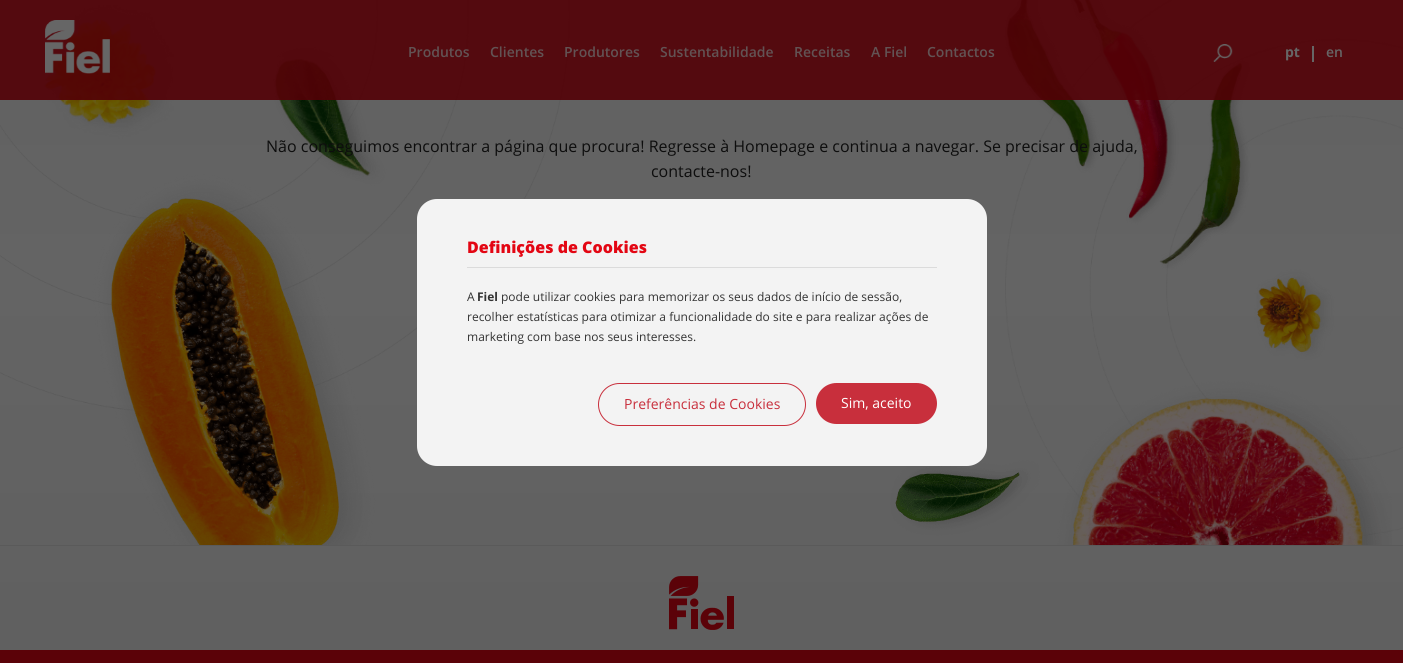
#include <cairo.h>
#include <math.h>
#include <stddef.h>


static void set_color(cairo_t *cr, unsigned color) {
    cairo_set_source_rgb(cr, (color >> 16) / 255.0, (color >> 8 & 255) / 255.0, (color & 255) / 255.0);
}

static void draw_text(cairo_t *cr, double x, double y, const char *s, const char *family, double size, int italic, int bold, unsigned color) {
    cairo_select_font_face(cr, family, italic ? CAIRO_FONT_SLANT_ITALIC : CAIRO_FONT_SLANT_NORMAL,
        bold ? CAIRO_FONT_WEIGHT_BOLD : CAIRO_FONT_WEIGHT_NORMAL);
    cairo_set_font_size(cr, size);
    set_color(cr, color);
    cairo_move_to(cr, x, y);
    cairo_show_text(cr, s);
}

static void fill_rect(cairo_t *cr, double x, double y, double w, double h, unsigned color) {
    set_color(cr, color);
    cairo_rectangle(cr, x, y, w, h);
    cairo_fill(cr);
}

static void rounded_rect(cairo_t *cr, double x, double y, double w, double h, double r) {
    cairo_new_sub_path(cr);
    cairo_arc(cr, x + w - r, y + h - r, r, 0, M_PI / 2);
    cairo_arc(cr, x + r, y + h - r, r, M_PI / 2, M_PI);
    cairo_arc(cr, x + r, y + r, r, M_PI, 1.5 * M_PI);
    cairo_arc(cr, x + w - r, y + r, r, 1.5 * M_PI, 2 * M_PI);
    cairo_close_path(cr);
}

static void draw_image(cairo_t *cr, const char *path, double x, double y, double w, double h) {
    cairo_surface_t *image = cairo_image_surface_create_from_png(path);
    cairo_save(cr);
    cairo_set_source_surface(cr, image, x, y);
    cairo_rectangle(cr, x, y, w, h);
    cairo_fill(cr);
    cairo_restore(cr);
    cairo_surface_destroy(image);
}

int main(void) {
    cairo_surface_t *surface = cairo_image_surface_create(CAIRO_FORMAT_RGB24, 1403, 663);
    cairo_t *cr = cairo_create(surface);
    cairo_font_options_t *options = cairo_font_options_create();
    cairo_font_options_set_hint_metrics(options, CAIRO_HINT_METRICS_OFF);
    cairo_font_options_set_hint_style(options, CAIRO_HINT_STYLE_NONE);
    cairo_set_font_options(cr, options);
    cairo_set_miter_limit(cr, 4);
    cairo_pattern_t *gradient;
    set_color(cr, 0xFFFFFF);
    cairo_paint(cr);
    gradient = cairo_pattern_create_linear(702, 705, 702, -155);
    cairo_pattern_add_color_stop_rgba(gradient, 0, 0.373, 0.373, 0.373, 1);
    cairo_pattern_add_color_stop_rgba(gradient, 0.5, 0.392, 0.392, 0.392, 1);
    cairo_pattern_add_color_stop_rgba(gradient, 1, 0.373, 0.373, 0.373, 1);
    cairo_set_source(cr, gradient);
    cairo_pattern_destroy(gradient);
    cairo_rectangle(cr, 0, 0, 1403, 650);
    cairo_fill(cr);
    draw_image(cr, "assets/img3.png", 0, 0, 1403, 537);
    draw_image(cr, "assets/img4.png", 44, 0, 1348, 545);
    cairo_set_source_rgba(cr, 0.325, 0.004, 0.024, 0.9);
    cairo_rectangle(cr, 0, 0, 1403, 100);
    cairo_fill(cr);
    draw_image(cr, "assets/img1.png", 45, 20, 65, 54);
    draw_text(cr, 408, 57, "Produtos", "Open Sans SemiBold", 14, 0, 0, 0x625354);
    draw_text(cr, 490, 57, "Clientes", "Open Sans SemiBold", 14, 0, 0, 0x625354);
    draw_text(cr, 564, 57, "Produtores", "Open Sans SemiBold", 14, 0, 0, 0x625354);
    draw_text(cr, 660, 57, "Sustentabilidade", "Open Sans SemiBold", 14, 0, 0, 0x625354);
    draw_text(cr, 794, 57, "Receitas", "Open Sans SemiBold", 14, 0, 0, 0x625354);
    draw_text(cr, 871, 57, "A Fiel", "Open Sans SemiBold", 14, 0, 0, 0x625354);
    draw_text(cr, 927, 57, "Contactos", "Open Sans SemiBold", 14, 0, 0, 0x625354);
    draw_image(cr, "assets/img2.png", 1213, 44, 20, 18);
    draw_text(cr, 1285, 57, "pt", "Open Sans", 14, 0, 1, 0x666666);
    fill_rect(cr, 1312, 46, 2, 16, 0x666666);
    draw_text(cr, 1326, 57, "en", "Open Sans SemiBold", 14, 0, 0, 0x666666);
    draw_text(cr, 266, 152, "Não conseguimos encontrar a página que procura! Regresse à Homepage e continua a navegar. Se precisar de ajuda,", "Open Sans", 16, 0, 0, 0x0D0D0D);
    draw_text(cr, 651, 177, "contacte-nos!", "Open Sans", 16, 0, 0, 0x0D0D0D);
    fill_rect(cr, 0, 545, 1403, 1, 0x5A5A5A);
    draw_image(cr, "assets/img5.png", 669, 576, 65, 54);
    fill_rect(cr, 0, 650, 1403, 13, 0x5B0208);
    set_color(cr, 0xF3F3F3);
    rounded_rect(cr, 417, 199, 570, 267, 20);
    cairo_fill(cr);
    fill_rect(cr, 467, 267, 470, 1, 0xDBDBDB);
    draw_text(cr, 467, 253, "Definições de Cookies", "Open Sans ExtraBold", 16, 0, 0, 0xE30613);
    draw_text(cr, 467, 301, "A", "Open Sans", 12, 0, 0, 0x333333);
    draw_text(cr, 477, 301, "Fiel", "Open Sans", 12, 0, 1, 0x333333);
    draw_text(cr, 501, 301, "pode utilizar cookies para memorizar os seus dados de início de sessão,", "Open Sans", 12, 0, 0, 0x333333);
    draw_text(cr, 467, 321, "recolher estatísticas para otimizar a funcionalidade do site e para realizar ações de", "Open Sans", 12, 0, 0, 0x333333);
    draw_text(cr, 467, 341, "marketing com base nos seus interesses.", "Open Sans", 12, 0, 0, 0x333333);
    rounded_rect(cr, 598.5, 383.5, 207, 42, 21);
    set_color(cr, 0xC82F3C);
    cairo_set_line_width(cr, 1);
    cairo_stroke(cr);
    draw_text(cr, 624, 409, "Preferências de Cookies", "Open Sans", 14, 0, 0, 0xC82F3C);
    rounded_rect(cr, 816, 383, 121, 41, 20.5);
    cairo_fill(cr);
    draw_text(cr, 841, 408, "Sim, aceito", "Open Sans", 14, 0, 0, 0xFFFFFF);
    cairo_surface_write_to_png(surface, "output.png");
    cairo_font_options_destroy(options);
    cairo_destroy(cr);
    cairo_surface_destroy(surface);
    return 0;
}
